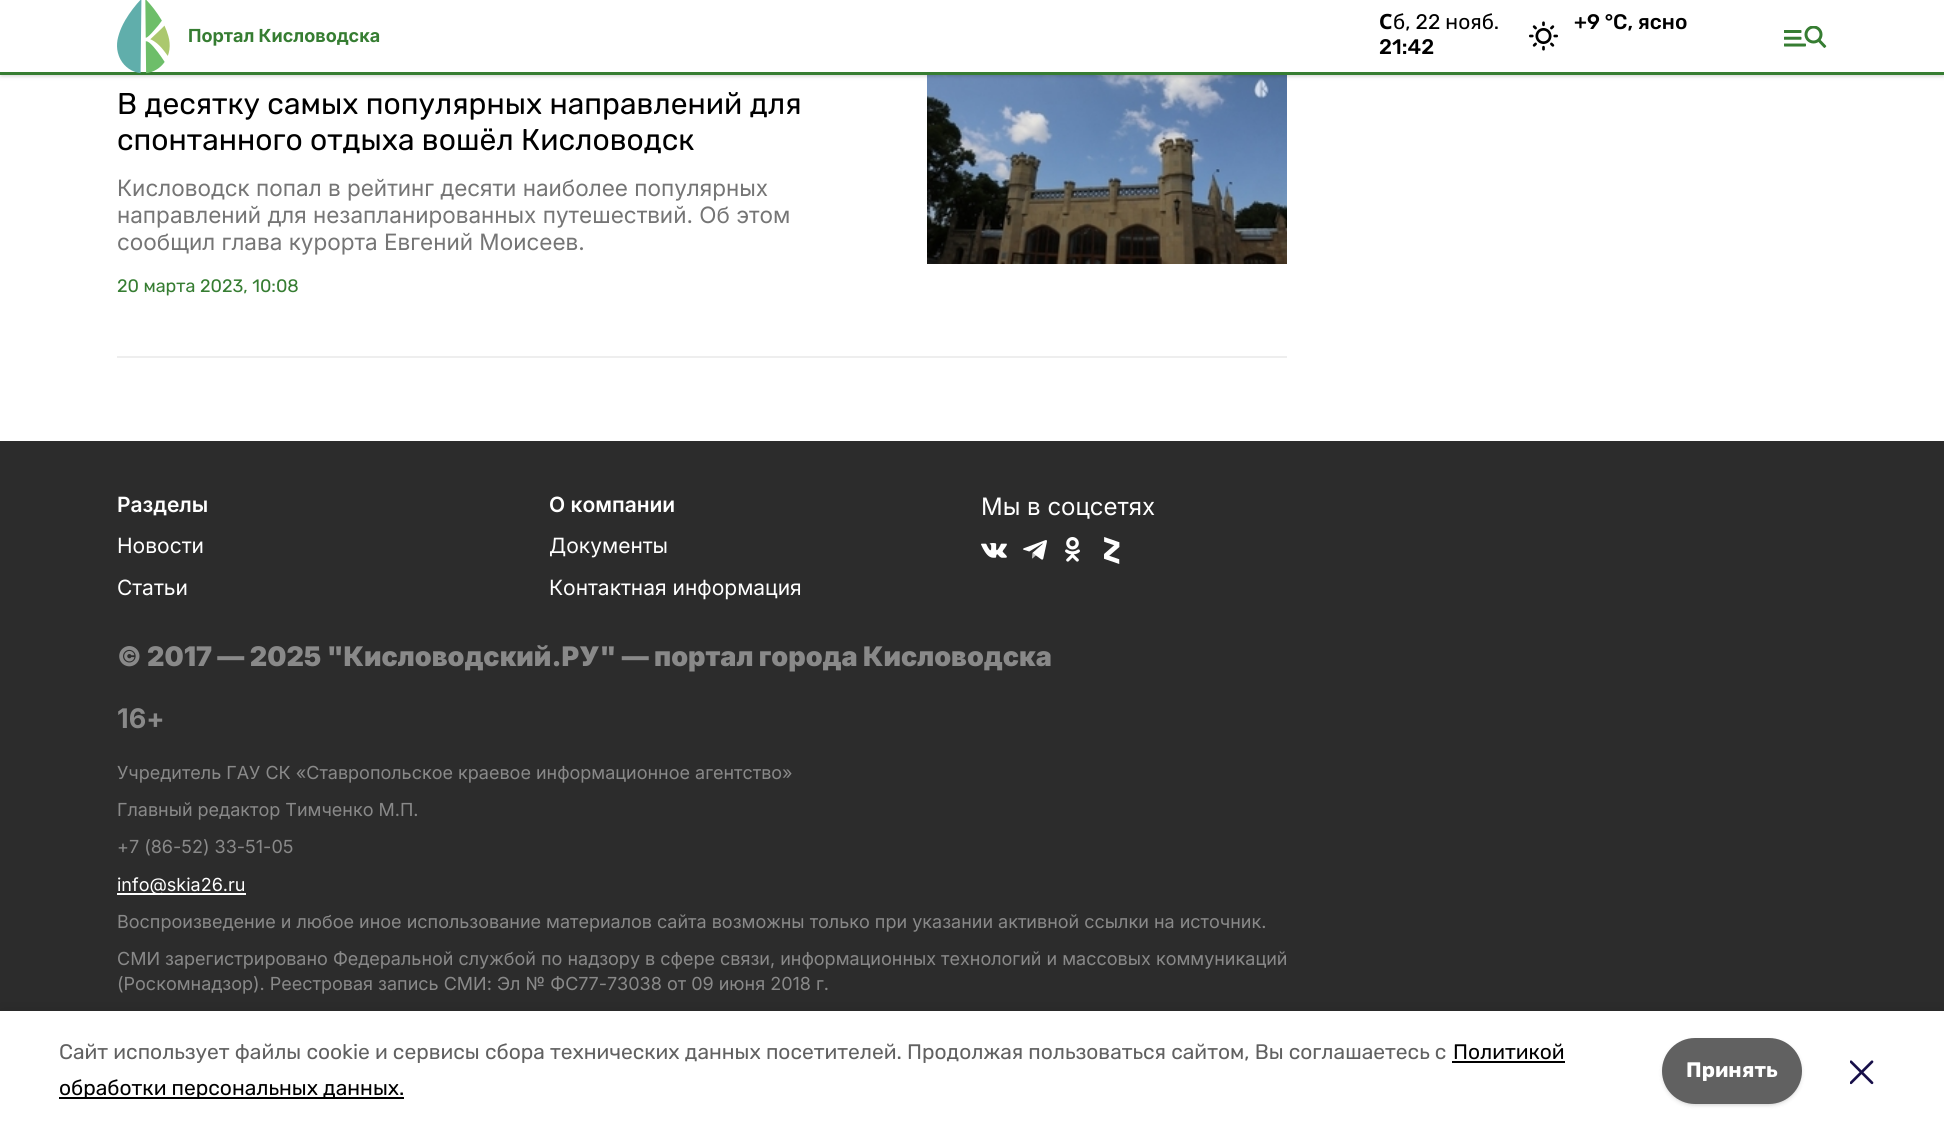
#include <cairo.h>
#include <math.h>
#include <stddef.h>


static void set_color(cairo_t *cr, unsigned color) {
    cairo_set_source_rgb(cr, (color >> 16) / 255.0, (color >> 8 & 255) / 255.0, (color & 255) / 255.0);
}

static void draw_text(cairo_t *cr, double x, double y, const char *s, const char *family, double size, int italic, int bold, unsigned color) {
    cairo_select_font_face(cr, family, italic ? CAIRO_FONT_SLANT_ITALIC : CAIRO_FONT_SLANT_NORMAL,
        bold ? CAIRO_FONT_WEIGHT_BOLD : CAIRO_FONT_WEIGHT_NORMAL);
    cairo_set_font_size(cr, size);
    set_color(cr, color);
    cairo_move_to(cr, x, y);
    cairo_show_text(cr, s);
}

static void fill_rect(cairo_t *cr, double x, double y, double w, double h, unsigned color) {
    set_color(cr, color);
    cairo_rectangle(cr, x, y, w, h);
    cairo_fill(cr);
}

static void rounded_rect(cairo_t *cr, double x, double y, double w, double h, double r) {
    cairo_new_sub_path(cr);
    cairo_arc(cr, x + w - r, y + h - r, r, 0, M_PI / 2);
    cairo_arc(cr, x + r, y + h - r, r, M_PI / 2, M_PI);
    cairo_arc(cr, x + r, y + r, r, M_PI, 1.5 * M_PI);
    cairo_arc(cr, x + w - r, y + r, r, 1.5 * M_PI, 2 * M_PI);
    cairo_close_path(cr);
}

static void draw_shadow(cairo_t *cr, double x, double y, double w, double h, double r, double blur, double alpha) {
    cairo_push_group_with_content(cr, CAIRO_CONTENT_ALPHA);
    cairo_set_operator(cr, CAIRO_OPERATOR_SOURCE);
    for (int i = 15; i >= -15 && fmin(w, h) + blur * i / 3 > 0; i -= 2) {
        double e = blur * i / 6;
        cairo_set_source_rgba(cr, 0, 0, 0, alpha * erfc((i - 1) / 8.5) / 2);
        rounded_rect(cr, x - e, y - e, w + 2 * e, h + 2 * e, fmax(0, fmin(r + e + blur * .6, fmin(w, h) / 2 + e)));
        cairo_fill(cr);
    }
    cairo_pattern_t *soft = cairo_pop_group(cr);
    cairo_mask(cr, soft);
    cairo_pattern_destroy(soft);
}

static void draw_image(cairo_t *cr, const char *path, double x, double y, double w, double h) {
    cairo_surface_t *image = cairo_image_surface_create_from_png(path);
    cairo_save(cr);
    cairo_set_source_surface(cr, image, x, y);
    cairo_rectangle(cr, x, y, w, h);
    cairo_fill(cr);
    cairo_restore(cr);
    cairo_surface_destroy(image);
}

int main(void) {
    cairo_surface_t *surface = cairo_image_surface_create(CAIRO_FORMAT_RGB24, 1944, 1131);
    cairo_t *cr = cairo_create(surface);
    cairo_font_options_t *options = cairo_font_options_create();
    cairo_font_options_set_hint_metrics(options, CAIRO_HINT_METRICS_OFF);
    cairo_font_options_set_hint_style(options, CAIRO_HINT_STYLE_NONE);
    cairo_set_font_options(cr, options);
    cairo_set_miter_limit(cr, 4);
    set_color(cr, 0xFFFFFF);
    cairo_paint(cr);
    draw_image(cr, "assets/img4.png", 927, 75, 360, 189);
    set_color(cr, 0x000000);
    draw_shadow(cr, 2, 3, 1941, 72, 0, 1.5, 0.1);
    draw_shadow(cr, 0, 2, 1944, 75, 0, 2, 0.1);
    fill_rect(cr, 0, 0, 1944, 72, 0xFFFFFF);
    fill_rect(cr, 0, 72, 1944, 3, 0x367D32);
    draw_image(cr, "assets/img1.png", 117, 0, 53, 74);
    draw_text(cr, 188, 42, "Портал Кисловодска", "Inter", 18, 0, 1, 0x367D32);
    draw_text(cr, 1379, 29, "С", "Noto Sans", 21, 0, 1, 0x000000);
    draw_text(cr, 1393, 29, "б, 22 нояб.", "Rubik", 21, 0, 0, 0x000000);
    draw_text(cr, 1379, 54, "21:42", "Rubik Medium", 21, 0, 0, 0x000000);
    draw_image(cr, "assets/img2.png", 1529, 21, 29, 30);
    draw_text(cr, 1574, 29, "+9 °С, ясно", "Rubik Medium", 21, 0, 0, 0x000000);
    draw_image(cr, "assets/img3.png", 1784, 26, 43, 22);
    fill_rect(cr, 117, 356, 1170, 2, 0xEEEEEE);
    draw_text(cr, 117, 114, "В десятку самых популярных направлений для", "Rubik", 30, 0, 0, 0x000000);
    draw_text(cr, 117, 150, "спонтанного отдыха вошёл Кисловодск", "Rubik", 30, 0, 0, 0x000000);
    draw_text(cr, 117, 196, "Кисловодск попал в рейтинг десяти наиболее популярных", "Inter", 22.5, 0, 0, 0x757575);
    draw_text(cr, 117, 223, "направлений для незапланированных путешествий. Об этом", "Inter", 22.5, 0, 0, 0x757575);
    draw_text(cr, 117, 250, "сообщил глава курорта Евгений Моисеев.", "Inter", 22.5, 0, 0, 0x757575);
    draw_text(cr, 117, 292, "20 марта 2023, 10:08", "Rubik", 18, 0, 0, 0x367D32);
    fill_rect(cr, 0, 441, 1944, 570, 0x2C2C2C);
    draw_text(cr, 117, 512, "Разделы", "Inter SemiBold", 21, 0, 0, 0xFFFFFF);
    draw_text(cr, 117, 553, "Новости", "Inter", 21, 0, 0, 0xFFFFFF);
    draw_text(cr, 117, 595, "Статьи", "Inter", 21, 0, 0, 0xFFFFFF);
    draw_text(cr, 549, 512, "О компании", "Inter SemiBold", 21, 0, 0, 0xFFFFFF);
    draw_text(cr, 549, 553, "Документы", "Inter", 21, 0, 0, 0xFFFFFF);
    draw_text(cr, 549, 595, "Контактная информация", "Inter", 21, 0, 0, 0xFFFFFF);
    draw_text(cr, 981, 515, "Мы в соцсетях", "Inter", 24, 0, 0, 0xFFFFFF);
    draw_image(cr, "assets/img5.png", 981, 543, 26, 15);
    draw_image(cr, "assets/img6.png", 1023, 540, 24, 20);
    draw_image(cr, "assets/img7.png", 1065, 537, 15, 25);
    draw_image(cr, "assets/img8.png", 1104, 537, 16, 27);
    draw_text(cr, 117, 666, "© 2017 — 2025 \"Кисловодский.РУ\" — портал города Кисловодска", "Inter Black", 27, 0, 0, 0x898989);
    draw_text(cr, 117, 728, "16+", "Inter", 27, 0, 1, 0x898989);
    draw_text(cr, 117, 779, "Учредитель ГАУ СК «Ставропольское краевое информационное агентство»", "Inter", 18, 0, 0, 0x898989);
    draw_text(cr, 117, 816, "Главный редактор Тимченко М.П.", "Inter", 18, 0, 0, 0x898989);
    draw_text(cr, 117, 853, "+7 (86-52) 33-51-05", "Inter", 18, 0, 0, 0x898989);
    fill_rect(cr, 117, 893, 129, 2, 0xFFFFFF);
    draw_text(cr, 117, 891, "info@skia26.ru", "Inter", 18, 0, 0, 0xFFFFFF);
    draw_text(cr, 117, 928, "Воспроизведение и любое иное использование материалов сайта возможны только при указании активной ссылки на источник.", "Inter", 18, 0, 0, 0x898989);
    draw_text(cr, 117, 965, "СМИ зарегистрировано Федеральной службой по надзору в сфере связи, информационных технологий и массовых коммуникаций", "Inter", 18, 0, 0, 0x898989);
    draw_text(cr, 117, 990, "(Роскомнадзор). Реестровая запись СМИ: Эл № ФС77-73038 от 09 июня 2018 г.", "Inter", 18, 0, 0, 0x898989);
    set_color(cr, 0x000000);
    draw_shadow(cr, 0, 1011, 1944, 120, 0, 7.5, 0.1);
    fill_rect(cr, 0, 1011, 1944, 120, 0xFFFFFF);
    draw_text(cr, 59, 1059, "Cайт использует файлы cookie и сервисы сбора технических данных посетителей.", "Rubik", 21, 0, 0, 0x616161);
    draw_text(cr, 907, 1059, "Продолжая пользоваться сайтом, Вы соглашаетесь с", "Rubik", 21, 0, 0, 0x616161);
    draw_text(cr, 1453, 1059, "Политикой", "Rubik", 21, 0, 0, 0x000000);
    fill_rect(cr, 1452, 1061, 113, 2, 0x000000);
    fill_rect(cr, 59, 1097, 345, 2, 0x000000);
    draw_text(cr, 59, 1095, "обработки персональных данных.", "Rubik", 21, 0, 0, 0x000000);
    set_color(cr, 0x000000);
    draw_shadow(cr, 1664, 1041, 136, 63, 31.5, 1.5, 0.1);
    draw_shadow(cr, 1662, 1040, 140, 66, 33, 2, 0.1);
    set_color(cr, 0x616161);
    rounded_rect(cr, 1662, 1038, 140, 66, 33);
    cairo_fill(cr);
    draw_text(cr, 1686, 1077, "Принять", "Rubik", 21, 0, 1, 0xFFFFFF);
    draw_image(cr, "assets/img9.png", 1850, 1060, 24, 25);
    cairo_surface_write_to_png(surface, "output.png");
    cairo_font_options_destroy(options);
    cairo_destroy(cr);
    cairo_surface_destroy(surface);
    return 0;
}
